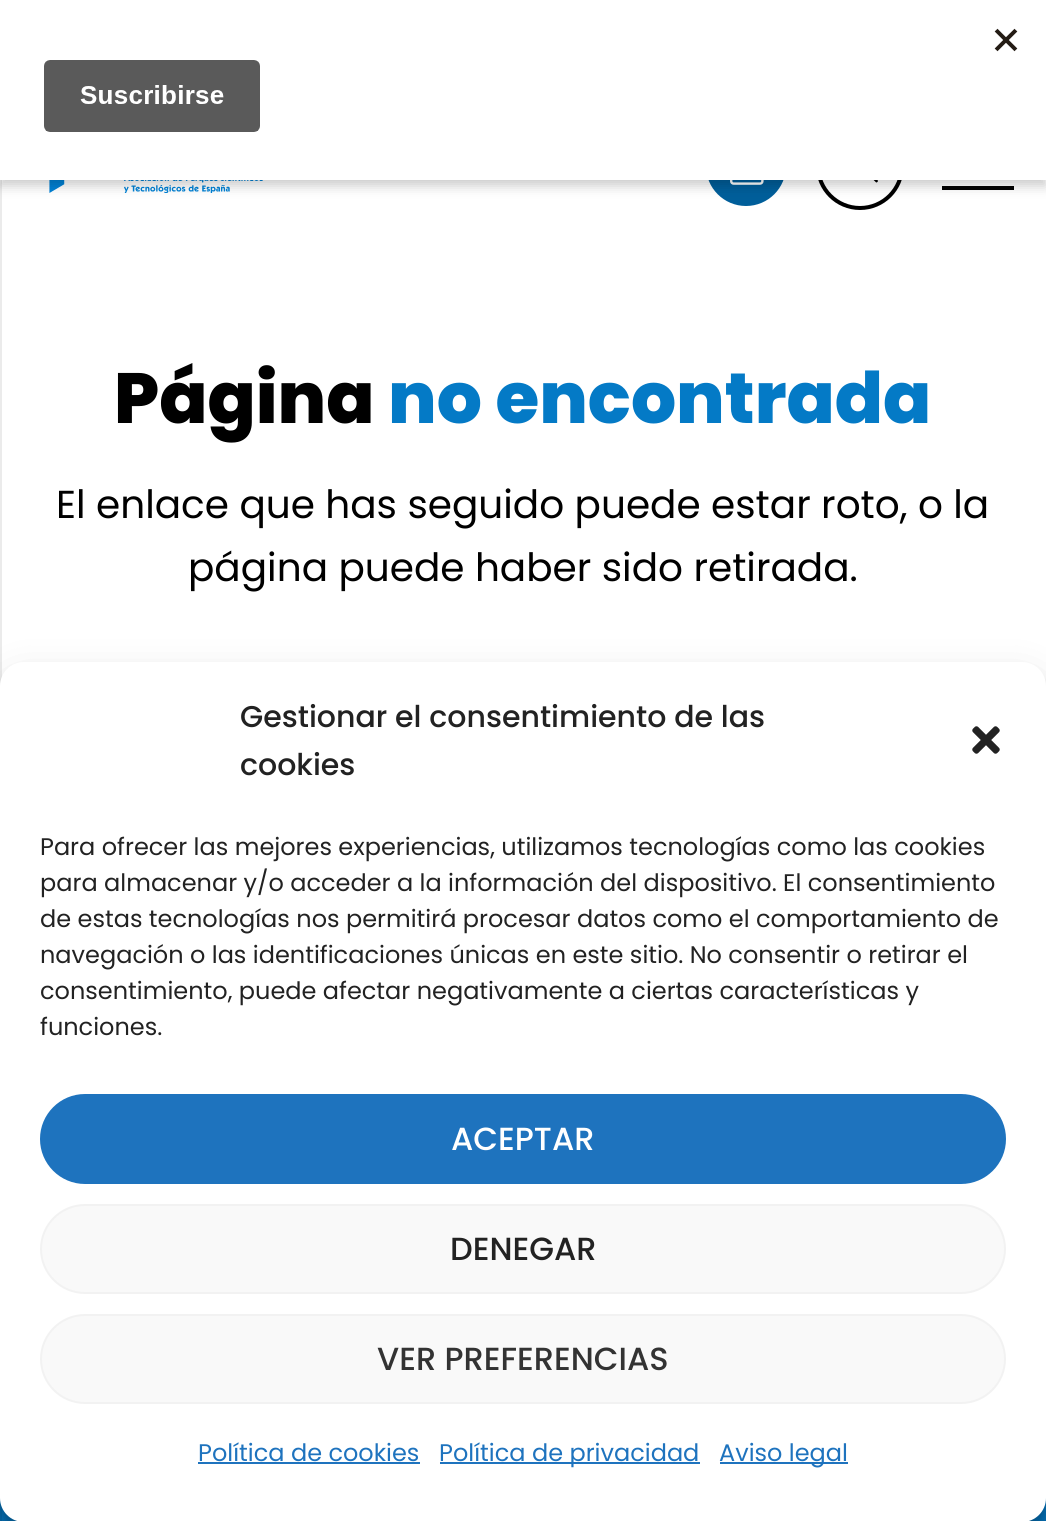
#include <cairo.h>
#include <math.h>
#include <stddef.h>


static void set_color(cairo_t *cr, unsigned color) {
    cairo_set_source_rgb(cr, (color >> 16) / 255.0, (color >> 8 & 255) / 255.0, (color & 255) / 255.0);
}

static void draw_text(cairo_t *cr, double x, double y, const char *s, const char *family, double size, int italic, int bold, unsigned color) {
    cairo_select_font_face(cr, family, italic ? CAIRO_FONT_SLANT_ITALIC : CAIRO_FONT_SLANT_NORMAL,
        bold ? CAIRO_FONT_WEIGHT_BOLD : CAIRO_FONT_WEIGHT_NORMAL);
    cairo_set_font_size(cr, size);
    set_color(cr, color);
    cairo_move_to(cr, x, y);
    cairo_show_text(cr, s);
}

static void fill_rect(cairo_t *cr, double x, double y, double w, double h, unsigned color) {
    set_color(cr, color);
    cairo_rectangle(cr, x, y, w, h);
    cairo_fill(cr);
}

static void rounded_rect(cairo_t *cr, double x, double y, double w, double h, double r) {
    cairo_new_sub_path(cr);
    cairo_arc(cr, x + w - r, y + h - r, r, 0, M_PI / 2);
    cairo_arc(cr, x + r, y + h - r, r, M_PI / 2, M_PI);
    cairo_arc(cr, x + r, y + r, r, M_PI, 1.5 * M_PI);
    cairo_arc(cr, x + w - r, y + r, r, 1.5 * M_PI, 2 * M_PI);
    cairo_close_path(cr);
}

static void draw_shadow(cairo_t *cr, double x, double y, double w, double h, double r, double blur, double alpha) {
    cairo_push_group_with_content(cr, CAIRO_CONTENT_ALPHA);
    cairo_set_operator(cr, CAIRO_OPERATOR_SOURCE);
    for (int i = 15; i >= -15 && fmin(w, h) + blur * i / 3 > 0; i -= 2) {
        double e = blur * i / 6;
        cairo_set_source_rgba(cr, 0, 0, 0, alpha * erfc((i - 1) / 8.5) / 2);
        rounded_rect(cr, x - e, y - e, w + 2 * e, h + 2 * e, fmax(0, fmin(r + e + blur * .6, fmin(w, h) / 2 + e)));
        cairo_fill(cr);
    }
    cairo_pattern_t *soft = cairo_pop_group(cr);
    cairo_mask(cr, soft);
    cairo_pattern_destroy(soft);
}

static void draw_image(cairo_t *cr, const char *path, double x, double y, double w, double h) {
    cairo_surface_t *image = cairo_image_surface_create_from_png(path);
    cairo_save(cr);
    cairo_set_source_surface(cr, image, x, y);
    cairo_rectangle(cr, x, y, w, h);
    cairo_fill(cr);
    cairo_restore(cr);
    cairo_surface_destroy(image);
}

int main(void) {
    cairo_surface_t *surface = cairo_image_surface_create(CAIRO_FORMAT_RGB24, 1046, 1521);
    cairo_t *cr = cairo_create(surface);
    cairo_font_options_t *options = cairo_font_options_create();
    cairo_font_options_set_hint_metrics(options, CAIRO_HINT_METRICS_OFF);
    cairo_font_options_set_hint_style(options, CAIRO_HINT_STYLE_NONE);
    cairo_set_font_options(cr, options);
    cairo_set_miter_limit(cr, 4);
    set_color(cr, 0xFFFFFF);
    cairo_paint(cr);
    fill_rect(cr, 0, 180, 2, 506, 0xEBEBEB);
    draw_image(cr, "assets/img2.png", 49, 180, 214, 13);
    set_color(cr, 0x005E9A);
    cairo_arc(cr, 746, 166, 42, 0, 2 * M_PI);
    cairo_fill_preserve(cr);
    set_color(cr, 0xFFFFFF);
    cairo_set_line_width(cr, 4);
    cairo_stroke(cr);
    draw_image(cr, "assets/img3.png", 730, 180, 34, 5);
    cairo_arc(cr, 860, 166, 42, 0, 2 * M_PI);
    set_color(cr, 0x000000);
    cairo_stroke(cr);
    draw_image(cr, "assets/img4.png", 873, 180, 5, 3);
    fill_rect(cr, 942, 186, 72, 4, 0x000000);
    set_color(cr, 0x000000);
    draw_shadow(cr, 0, 6, 1046, 180, 0, 6, 0.2);
    fill_rect(cr, 0, 0, 1046, 180, 0xFFFFFF);
    draw_image(cr, "assets/img1.png", 44, 28, 974, 104);
    draw_text(cr, 114, 423, "Página", "Poppins ExtraBold", 71, 0, 0, 0x000000);
    draw_text(cr, 388, 423, "no encontrada", "Poppins ExtraBold", 71, 0, 0, 0x047AC6);
    draw_text(cr, 56, 518, "El enlace que has seguido puede estar roto, o la", "Poppins", 39, 0, 0, 0x000000);
    draw_text(cr, 188, 581, "página puede haber sido retirada.", "Poppins", 39, 0, 0, 0x000000);
    fill_rect(cr, 2, 1498, 1044, 23, 0x047AC6);
    fill_rect(cr, 0, 1498, 2, 23, 0x0470B6);
    set_color(cr, 0x000000);
    draw_shadow(cr, 0, 674, 1046, 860, 24, 6, 0.23);
    draw_shadow(cr, 0, 682, 1046, 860, 24, 20, 0.19);
    set_color(cr, 0xFFFFFF);
    rounded_rect(cr, 0, 662, 1046, 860, 24);
    cairo_fill(cr);
    draw_text(cr, 240, 727, "Gestionar el consentimiento de las", "Poppins Medium", 30, 0, 0, 0x222222);
    draw_text(cr, 240, 775, "cookies", "Poppins Medium", 30, 0, 0, 0x222222);
    draw_image(cr, "assets/img5.png", 972, 726, 28, 28);
    draw_text(cr, 40, 855, "Para ofrecer las mejores experiencias, utilizamos tecnologías como las cookies", "Poppins", 24, 0, 0, 0x222222);
    draw_text(cr, 40, 891, "para almacenar y/o acceder a la información del dispositivo. El consentimiento", "Poppins", 24, 0, 0, 0x222222);
    draw_text(cr, 40, 927, "de estas tecnologías nos permitirá procesar datos como el comportamiento de", "Poppins", 24, 0, 0, 0x222222);
    draw_text(cr, 40, 963, "navegación o las identificaciones únicas en este sitio. No consentir o retirar el", "Poppins", 24, 0, 0, 0x222222);
    draw_text(cr, 40, 999, "consentimiento, puede afectar negativamente a ciertas características y", "Poppins", 24, 0, 0, 0x222222);
    draw_text(cr, 40, 1035, "funciones.", "Poppins", 24, 0, 0, 0x222222);
    set_color(cr, 0x1E73BE);
    rounded_rect(cr, 41, 1095, 964, 88, 44);
    cairo_fill_preserve(cr);
    cairo_set_line_width(cr, 2);
    cairo_stroke(cr);
    draw_text(cr, 451, 1150, "ACEPTAR", "Poppins Medium", 32, 0, 0, 0xFFFFFF);
    set_color(cr, 0xF9F9F9);
    rounded_rect(cr, 41, 1205, 964, 88, 44);
    cairo_fill_preserve(cr);
    set_color(cr, 0xF2F2F2);
    cairo_stroke(cr);
    draw_text(cr, 450, 1260, "DENEGAR", "Poppins Medium", 32, 0, 0, 0x222222);
    set_color(cr, 0xF9F9F9);
    rounded_rect(cr, 41, 1315, 964, 88, 44);
    cairo_fill_preserve(cr);
    set_color(cr, 0xF2F2F2);
    cairo_stroke(cr);
    draw_text(cr, 377, 1370, "VER PREFERENCIAS", "Poppins Medium", 32, 0, 0, 0x333333);
    draw_text(cr, 198, 1461, "Política de cookies", "Poppins", 24, 0, 0, 0x1E73BE);
    fill_rect(cr, 198, 1462, 222, 2, 0x1E73BE);
    fill_rect(cr, 440, 1462, 260, 2, 0x1E73BE);
    draw_text(cr, 439, 1461, "Política de privacidad", "Poppins", 24, 0, 0, 0x1E73BE);
    fill_rect(cr, 720, 1462, 128, 2, 0x1E73BE);
    draw_text(cr, 719, 1461, "Aviso legal", "Poppins", 24, 0, 0, 0x1E73BE);
    cairo_surface_write_to_png(surface, "output.png");
    cairo_font_options_destroy(options);
    cairo_destroy(cr);
    cairo_surface_destroy(surface);
    return 0;
}
